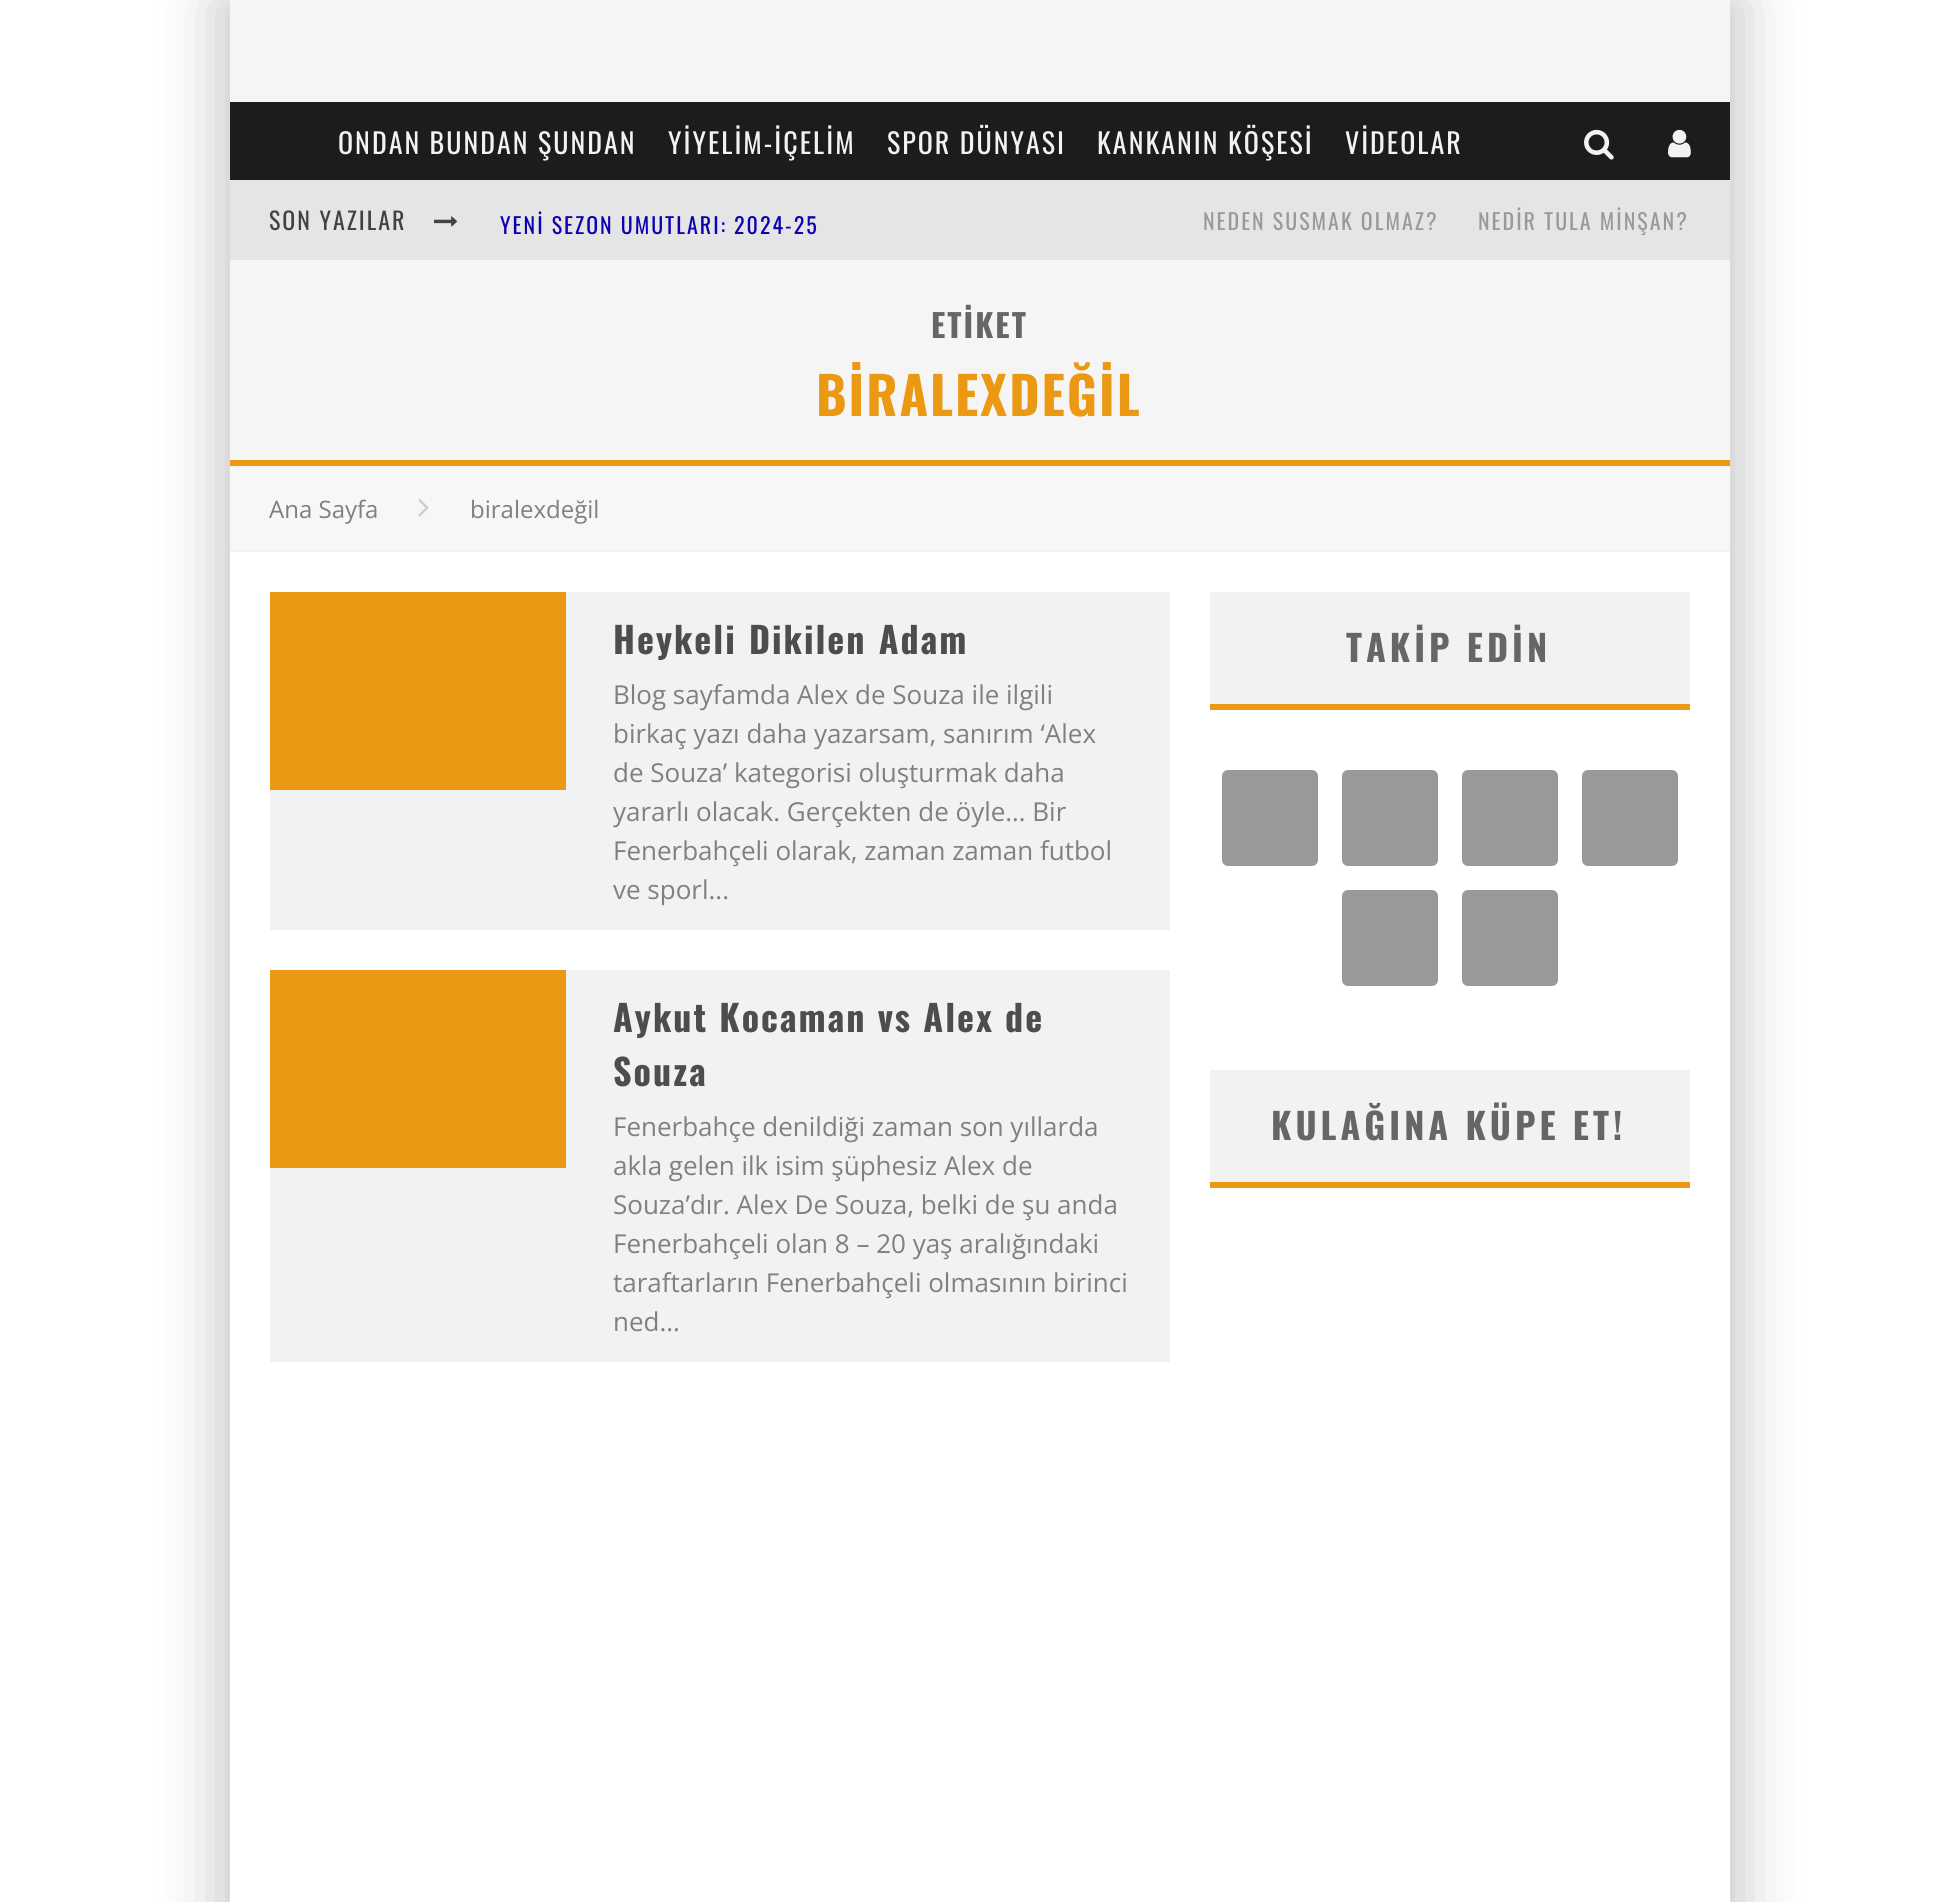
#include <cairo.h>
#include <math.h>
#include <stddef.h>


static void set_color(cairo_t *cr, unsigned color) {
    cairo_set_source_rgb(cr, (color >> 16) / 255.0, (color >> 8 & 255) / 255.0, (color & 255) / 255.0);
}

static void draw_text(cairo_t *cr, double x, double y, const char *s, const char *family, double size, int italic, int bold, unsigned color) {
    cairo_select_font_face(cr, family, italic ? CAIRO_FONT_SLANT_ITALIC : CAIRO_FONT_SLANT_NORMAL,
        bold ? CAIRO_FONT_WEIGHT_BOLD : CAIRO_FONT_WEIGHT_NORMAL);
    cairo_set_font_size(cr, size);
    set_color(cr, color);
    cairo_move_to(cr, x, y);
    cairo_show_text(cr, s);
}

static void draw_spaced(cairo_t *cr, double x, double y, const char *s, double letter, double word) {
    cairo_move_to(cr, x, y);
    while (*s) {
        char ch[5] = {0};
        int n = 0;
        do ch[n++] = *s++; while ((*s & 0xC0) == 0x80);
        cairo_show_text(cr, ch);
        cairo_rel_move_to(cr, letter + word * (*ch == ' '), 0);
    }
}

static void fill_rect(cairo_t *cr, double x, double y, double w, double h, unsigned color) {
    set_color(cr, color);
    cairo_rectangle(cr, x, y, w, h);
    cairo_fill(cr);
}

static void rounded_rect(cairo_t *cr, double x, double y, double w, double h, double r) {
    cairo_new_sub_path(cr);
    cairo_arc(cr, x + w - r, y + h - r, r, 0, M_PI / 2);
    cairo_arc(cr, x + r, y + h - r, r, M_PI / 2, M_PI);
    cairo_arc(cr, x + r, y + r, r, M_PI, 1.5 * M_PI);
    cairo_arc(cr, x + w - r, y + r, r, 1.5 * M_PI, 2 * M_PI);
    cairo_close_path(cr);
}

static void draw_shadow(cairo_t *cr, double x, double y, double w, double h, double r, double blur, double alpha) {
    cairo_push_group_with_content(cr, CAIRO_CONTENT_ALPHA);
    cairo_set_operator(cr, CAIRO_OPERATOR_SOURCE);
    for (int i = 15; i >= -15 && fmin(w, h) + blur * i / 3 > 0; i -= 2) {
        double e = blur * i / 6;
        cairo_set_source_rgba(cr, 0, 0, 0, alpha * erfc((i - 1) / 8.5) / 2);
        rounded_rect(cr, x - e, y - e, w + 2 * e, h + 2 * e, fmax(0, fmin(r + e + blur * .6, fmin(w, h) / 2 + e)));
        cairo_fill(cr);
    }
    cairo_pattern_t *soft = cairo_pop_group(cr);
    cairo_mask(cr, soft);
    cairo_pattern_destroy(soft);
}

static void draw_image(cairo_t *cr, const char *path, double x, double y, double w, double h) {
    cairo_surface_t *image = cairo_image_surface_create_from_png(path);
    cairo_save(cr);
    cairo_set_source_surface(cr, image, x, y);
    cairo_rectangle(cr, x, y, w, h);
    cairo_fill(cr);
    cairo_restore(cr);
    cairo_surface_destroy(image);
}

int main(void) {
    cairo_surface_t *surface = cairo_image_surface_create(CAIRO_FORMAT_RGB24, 1957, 1902);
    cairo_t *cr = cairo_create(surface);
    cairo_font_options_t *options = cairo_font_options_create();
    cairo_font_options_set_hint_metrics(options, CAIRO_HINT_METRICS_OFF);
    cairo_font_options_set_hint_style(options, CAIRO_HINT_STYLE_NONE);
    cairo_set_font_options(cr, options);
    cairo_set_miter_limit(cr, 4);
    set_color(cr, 0xFFFFFF);
    cairo_paint(cr);
    cairo_save(cr);
    cairo_set_fill_rule(cr, CAIRO_FILL_RULE_EVEN_ODD);
    cairo_new_path(cr);
    cairo_move_to(cr, 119, 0);
    cairo_line_to(cr, 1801, 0);
    cairo_line_to(cr, 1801, 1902);
    cairo_line_to(cr, 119, 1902);
    cairo_close_path(cr);
    cairo_move_to(cr, 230, 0);
    cairo_line_to(cr, 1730, 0);
    cairo_line_to(cr, 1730, 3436);
    cairo_line_to(cr, 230, 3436);
    cairo_close_path(cr);
    cairo_clip(cr);
    set_color(cr, 0x000000);
    draw_shadow(cr, 210, 0, 1500, 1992, 0, 30, 0.15);
    cairo_restore(cr);
    cairo_save(cr);
    cairo_set_fill_rule(cr, CAIRO_FILL_RULE_EVEN_ODD);
    cairo_new_path(cr);
    cairo_move_to(cr, 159, 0);
    cairo_line_to(cr, 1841, 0);
    cairo_line_to(cr, 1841, 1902);
    cairo_line_to(cr, 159, 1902);
    cairo_close_path(cr);
    cairo_move_to(cr, 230, 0);
    cairo_line_to(cr, 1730, 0);
    cairo_line_to(cr, 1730, 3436);
    cairo_line_to(cr, 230, 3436);
    cairo_close_path(cr);
    cairo_clip(cr);
    set_color(cr, 0x000000);
    draw_shadow(cr, 250, 0, 1500, 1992, 0, 30, 0.15);
    cairo_restore(cr);
    fill_rect(cr, 230, 0, 1500, 102, 0xF5F5F5);
    fill_rect(cr, 230, 102, 1500, 78, 0x1C1C1C);
    cairo_select_font_face(cr, "Oswald", CAIRO_FONT_SLANT_NORMAL, CAIRO_FONT_WEIGHT_NORMAL);
    cairo_set_font_size(cr, 28);
    set_color(cr, 0xF2F2F2);
    draw_spaced(cr, 338, 154, "ONDAN BUNDAN ŞUNDAN", 2, 0);
    draw_spaced(cr, 668, 154, "YİYELİM-İÇELİM", 2, 0);
    draw_spaced(cr, 887, 154, "SPOR DÜNYASI", 2, 0);
    draw_spaced(cr, 1097, 154, "KANKANIN KÖŞESİ", 2, 0);
    draw_spaced(cr, 1345, 154, "VİDEOLAR", 2, 0);
    draw_image(cr, "assets/img1.png", 1584, 129, 30, 31);
    draw_image(cr, "assets/img2.png", 1668, 129, 23, 29);
    fill_rect(cr, 230, 180, 1500, 80, 0xE5E5E5);
    cairo_set_font_size(cr, 24);
    set_color(cr, 0x424242);
    draw_spaced(cr, 269, 230, "SON YAZILAR", 2, 0);
    draw_image(cr, "assets/img3.png", 434, 216, 24, 11);
    cairo_set_font_size(cr, 22);
    set_color(cr, 0x0D01B2);
    draw_spaced(cr, 500, 234, "YENİ SEZON UMUTLARI: 2024-25", 2, 0);
    set_color(cr, 0x999999);
    draw_spaced(cr, 1203, 230, "NEDEN SUSMAK OLMAZ?", 2, 0);
    draw_spaced(cr, 1478, 230, "NEDİR TULA MİNŞAN?", 2, 0);
    fill_rect(cr, 230, 260, 1500, 200, 0xF5F5F5);
    fill_rect(cr, 230, 460, 1500, 6, 0xEB9812);
    cairo_select_font_face(cr, "Oswald", CAIRO_FONT_SLANT_NORMAL, CAIRO_FONT_WEIGHT_BOLD);
    cairo_set_font_size(cr, 32);
    set_color(cr, 0x666666);
    draw_spaced(cr, 931, 338, "ETİKET", 2, 0);
    cairo_set_font_size(cr, 52);
    set_color(cr, 0xEB9812);
    draw_spaced(cr, 816, 416, "BİRALEXDEĞİL", 2, 0);
    fill_rect(cr, 230, 466, 1500, 84, 0xF7F7F7);
    fill_rect(cr, 230, 550, 1500, 2, 0xF3F3F3);
    draw_text(cr, 269, 518, "Ana Sayfa", "Open Sans", 24, 0, 0, 0x808080);
    draw_image(cr, "assets/img4.png", 418, 499, 11, 18);
    draw_text(cr, 470, 518, "biralexdeğil", "Open Sans", 24, 0, 0, 0x808080);
    fill_rect(cr, 270, 592, 900, 338, 0xF2F2F2);
    fill_rect(cr, 270, 592, 296, 198, 0xEB9812);
    cairo_select_font_face(cr, "Oswald", CAIRO_FONT_SLANT_NORMAL, CAIRO_FONT_WEIGHT_BOLD);
    cairo_set_font_size(cr, 36);
    set_color(cr, 0x4D4D4D);
    draw_spaced(cr, 613, 654, "Heykeli Dikilen Adam", 2, 1);
    draw_text(cr, 613, 704, "Blog sayfamda Alex de Souza ile ilgili", "Open Sans", 26, 0, 0, 0x808080);
    draw_text(cr, 613, 743, "birkaç yazı daha yazarsam, sanırım ‘Alex", "Open Sans", 26, 0, 0, 0x808080);
    draw_text(cr, 613, 782, "de Souza’ kategorisi oluşturmak daha", "Open Sans", 26, 0, 0, 0x808080);
    draw_text(cr, 613, 821, "yararlı olacak. Gerçekten de öyle… Bir", "Open Sans", 26, 0, 0, 0x808080);
    draw_text(cr, 613, 860, "Fenerbahçeli olarak, zaman zaman futbol", "Open Sans", 26, 0, 0, 0x808080);
    draw_text(cr, 613, 899, "ve sporl...", "Open Sans", 26, 0, 0, 0x808080);
    fill_rect(cr, 270, 970, 900, 392, 0xF2F2F2);
    fill_rect(cr, 270, 970, 296, 198, 0xEB9812);
    cairo_select_font_face(cr, "Oswald", CAIRO_FONT_SLANT_NORMAL, CAIRO_FONT_WEIGHT_BOLD);
    cairo_set_font_size(cr, 36);
    set_color(cr, 0x4D4D4D);
    draw_spaced(cr, 613, 1032, "Aykut Kocaman vs Alex de", 2, 0);
    draw_spaced(cr, 613, 1086, "Souza", 2, 0);
    draw_text(cr, 613, 1136, "Fenerbahçe denildiği zaman son yıllarda", "Open Sans", 26, 0, 0, 0x808080);
    draw_text(cr, 613, 1175, "akla gelen ilk isim şüphesiz Alex de", "Open Sans", 26, 0, 0, 0x808080);
    draw_text(cr, 613, 1214, "Souza’dır. Alex De Souza, belki de şu anda", "Open Sans", 26, 0, 0, 0x808080);
    draw_text(cr, 613, 1253, "Fenerbahçeli olan 8 – 20 yaş aralığındaki", "Open Sans", 26, 0, 0, 0x808080);
    draw_text(cr, 613, 1292, "taraftarların Fenerbahçeli olmasının birinci", "Open Sans", 26, 0, 0, 0x808080);
    draw_text(cr, 613, 1331, "ned...", "Open Sans", 26, 0, 0, 0x808080);
    fill_rect(cr, 1210, 592, 480, 112, 0xF2F2F2);
    fill_rect(cr, 1210, 704, 480, 6, 0xEB9812);
    cairo_select_font_face(cr, "Oswald", CAIRO_FONT_SLANT_NORMAL, CAIRO_FONT_WEIGHT_BOLD);
    cairo_set_font_size(cr, 36);
    set_color(cr, 0x666666);
    draw_spaced(cr, 1346, 662, "TAKİP EDİN", 4, 0);
    set_color(cr, 0x999999);
    rounded_rect(cr, 1222, 770, 96, 96, 6);
    cairo_fill(cr);
    rounded_rect(cr, 1342, 770, 96, 96, 6);
    cairo_fill(cr);
    rounded_rect(cr, 1462, 770, 96, 96, 6);
    cairo_fill(cr);
    rounded_rect(cr, 1582, 770, 96, 96, 6);
    cairo_fill(cr);
    rounded_rect(cr, 1342, 890, 96, 96, 6);
    cairo_fill(cr);
    rounded_rect(cr, 1462, 890, 96, 96, 6);
    cairo_fill(cr);
    fill_rect(cr, 1210, 1070, 480, 112, 0xF2F2F2);
    fill_rect(cr, 1210, 1182, 480, 6, 0xEB9812);
    set_color(cr, 0x666666);
    draw_spaced(cr, 1271, 1140, "KULAĞINA KÜPE ET!", 4, 0);
    cairo_surface_write_to_png(surface, "output.png");
    cairo_font_options_destroy(options);
    cairo_destroy(cr);
    cairo_surface_destroy(surface);
    return 0;
}
